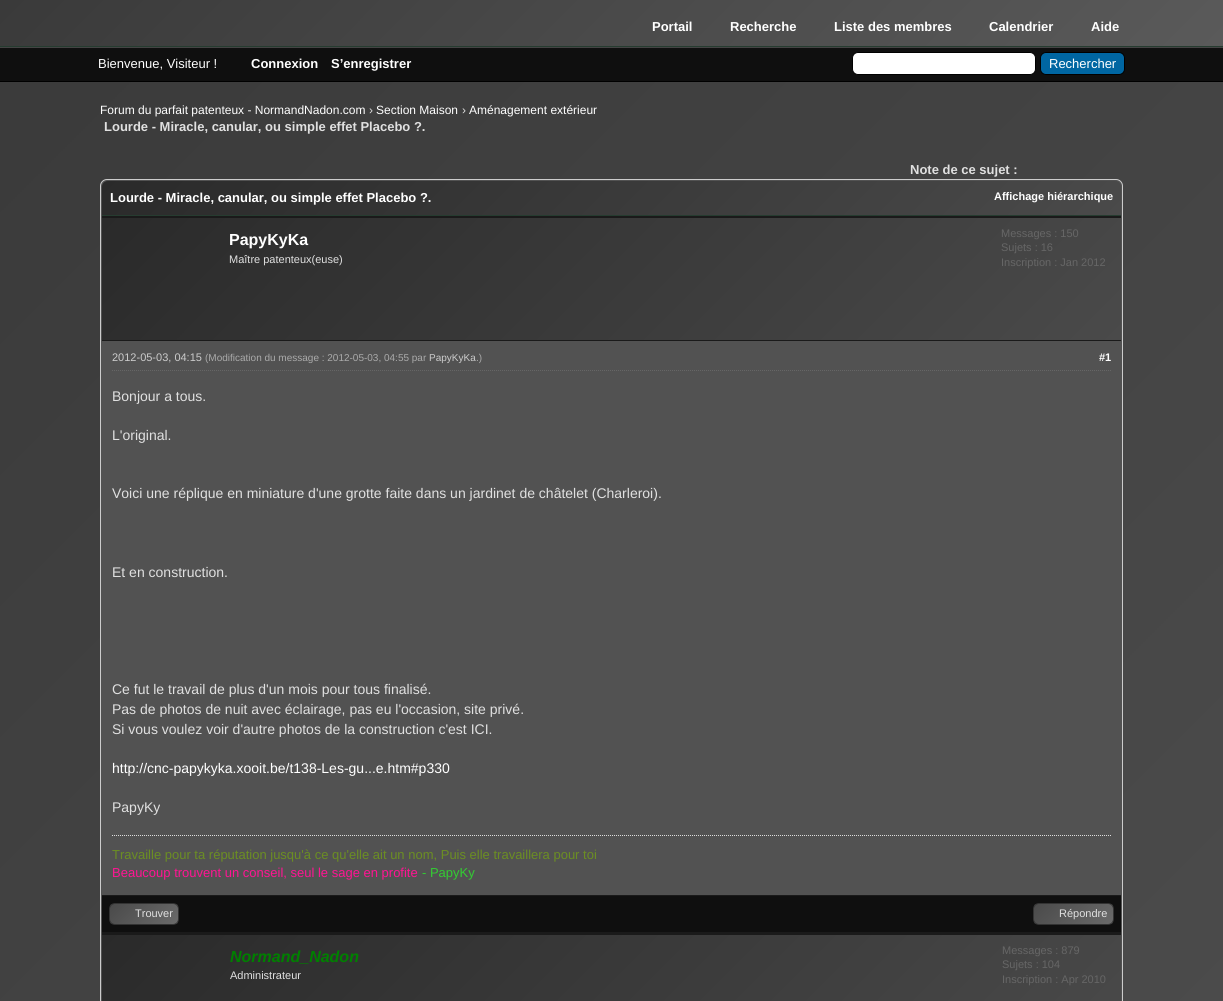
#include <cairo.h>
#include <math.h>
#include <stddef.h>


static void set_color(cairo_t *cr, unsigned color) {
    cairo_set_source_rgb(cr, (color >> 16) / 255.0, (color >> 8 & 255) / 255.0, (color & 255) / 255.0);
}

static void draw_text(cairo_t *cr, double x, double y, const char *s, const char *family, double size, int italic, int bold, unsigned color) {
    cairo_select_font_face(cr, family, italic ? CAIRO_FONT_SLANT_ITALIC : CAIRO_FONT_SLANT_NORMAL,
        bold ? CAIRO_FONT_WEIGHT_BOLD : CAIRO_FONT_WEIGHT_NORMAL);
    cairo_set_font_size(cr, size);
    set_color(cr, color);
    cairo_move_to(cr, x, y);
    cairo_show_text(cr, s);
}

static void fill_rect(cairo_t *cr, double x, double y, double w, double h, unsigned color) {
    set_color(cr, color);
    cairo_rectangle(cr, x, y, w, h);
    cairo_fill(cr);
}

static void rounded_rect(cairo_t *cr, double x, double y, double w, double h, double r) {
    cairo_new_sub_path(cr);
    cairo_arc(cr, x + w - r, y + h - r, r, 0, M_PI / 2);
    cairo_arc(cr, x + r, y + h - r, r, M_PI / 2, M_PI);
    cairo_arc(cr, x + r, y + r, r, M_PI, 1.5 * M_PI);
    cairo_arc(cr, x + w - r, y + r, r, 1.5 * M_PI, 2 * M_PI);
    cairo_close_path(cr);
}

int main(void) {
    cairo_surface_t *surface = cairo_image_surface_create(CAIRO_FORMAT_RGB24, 1223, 1001);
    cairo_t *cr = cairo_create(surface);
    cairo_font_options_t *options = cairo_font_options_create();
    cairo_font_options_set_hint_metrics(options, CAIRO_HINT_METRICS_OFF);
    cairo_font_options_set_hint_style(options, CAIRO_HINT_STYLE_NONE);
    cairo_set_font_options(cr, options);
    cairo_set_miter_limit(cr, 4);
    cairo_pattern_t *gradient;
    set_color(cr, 0xFFFFFF);
    cairo_paint(cr);
    gradient = cairo_pattern_create_linear(-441, 442, 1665, 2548);
    cairo_pattern_add_color_stop_rgba(gradient, 0, 0.227, 0.227, 0.227, 1);
    cairo_pattern_add_color_stop_rgba(gradient, 0.5, 0.29, 0.29, 0.29, 1);
    cairo_pattern_add_color_stop_rgba(gradient, 1, 0.353, 0.353, 0.353, 1);
    cairo_set_source(cr, gradient);
    cairo_pattern_destroy(gradient);
    cairo_rectangle(cr, 0, 82, 1223, 919);
    cairo_fill(cr);
    gradient = cairo_pattern_create_linear(294, -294, 929, 340);
    cairo_pattern_add_color_stop_rgba(gradient, 0, 0.227, 0.227, 0.227, 1);
    cairo_pattern_add_color_stop_rgba(gradient, 0.5, 0.29, 0.29, 0.29, 1);
    cairo_pattern_add_color_stop_rgba(gradient, 1, 0.353, 0.353, 0.353, 1);
    cairo_set_source(cr, gradient);
    cairo_pattern_destroy(gradient);
    cairo_rectangle(cr, 0, 0, 1223, 46);
    cairo_fill(cr);
    fill_rect(cr, 0, 46, 1223, 1, 0x263C30);
    draw_text(cr, 652, 31, "Portail", "Liberation Sans", 13, 0, 1, 0xFFFFFF);
    draw_text(cr, 730, 31, "Recherche", "Liberation Sans", 13, 0, 1, 0xFFFFFF);
    draw_text(cr, 834, 31, "Liste des membres", "Liberation Sans", 13, 0, 1, 0xFFFFFF);
    draw_text(cr, 989, 31, "Calendrier", "Liberation Sans", 13, 0, 1, 0xFFFFFF);
    draw_text(cr, 1091, 31, "Aide", "Liberation Sans", 13, 0, 1, 0xFFFFFF);
    fill_rect(cr, 0, 48, 1223, 33, 0x0F0F0F);
    fill_rect(cr, 0, 47, 1223, 1, 0x444444);
    fill_rect(cr, 0, 81, 1223, 1, 0x000000);
    draw_text(cr, 98, 68, "Bienvenue, Visiteur !", "Liberation Sans", 13, 0, 0, 0xFFFFFF);
    draw_text(cr, 251, 68, "Connexion", "Liberation Sans", 13, 0, 1, 0xFFFFFF);
    draw_text(cr, 331, 68, "S’enregistrer", "Liberation Sans", 13, 0, 1, 0xFFFFFF);
    rounded_rect(cr, 852.5, 52.5, 183, 22, 5.5);
    cairo_fill_preserve(cr);
    set_color(cr, 0x000000);
    cairo_set_line_width(cr, 1);
    cairo_stroke(cr);
    set_color(cr, 0x0066A2);
    rounded_rect(cr, 1040.5, 52.5, 84, 22, 5.5);
    cairo_fill_preserve(cr);
    set_color(cr, 0x000000);
    cairo_stroke(cr);
    draw_text(cr, 1049, 68, "Rechercher", "Liberation Sans", 13, 0, 0, 0xFFFFFF);
    draw_text(cr, 100, 114, "Forum du parfait patenteux - NormandNadon.com", "Liberation Sans", 12, 0, 0, 0xFFFFFF);
    draw_text(cr, 369, 114, "›", "Liberation Sans", 12, 0, 0, 0xE0E0E0);
    draw_text(cr, 376, 114, "Section Maison", "Liberation Sans", 12, 0, 0, 0xFFFFFF);
    draw_text(cr, 462, 114, "›", "Liberation Sans", 12, 0, 0, 0xE0E0E0);
    draw_text(cr, 469, 114, "Aménagement extérieur", "Liberation Sans", 12, 0, 0, 0xFFFFFF);
    draw_text(cr, 104, 131, "Lourde - Miracle, canular, ou simple effet Placebo ?.", "Liberation Sans", 13, 0, 1, 0xE0E0E0);
    draw_text(cr, 910, 174, "Note de ce sujet :", "Liberation Sans", 13, 0, 1, 0xE0E0E0);
    set_color(cr, 0x525252);
    rounded_rect(cr, 100.5, 179.5, 1022, 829, 6.5);
    cairo_fill_preserve(cr);
    set_color(cr, 0xCCCCCC);
    cairo_stroke(cr);
    gradient = cairo_pattern_create_linear(348, -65, 875, 461);
    cairo_pattern_add_color_stop_rgba(gradient, 0, 0.165, 0.165, 0.165, 1);
    cairo_pattern_add_color_stop_rgba(gradient, 0.5, 0.227, 0.227, 0.227, 1);
    cairo_pattern_add_color_stop_rgba(gradient, 1, 0.29, 0.29, 0.29, 1);
    cairo_set_source(cr, gradient);
    cairo_pattern_destroy(gradient);
    cairo_new_path(cr);
    cairo_move_to(cr, 108, 181);
    cairo_line_to(cr, 1115, 181);
    cairo_curve_to(cr, 1118.5, 181, 1121, 183.5, 1121, 187);
    cairo_line_to(cr, 1121, 215);
    cairo_line_to(cr, 102, 215);
    cairo_line_to(cr, 102, 187);
    cairo_curve_to(cr, 102, 183.5, 104.5, 181, 108, 181);
    cairo_close_path(cr);
    cairo_fill(cr);
    fill_rect(cr, 102, 215, 1019, 1, 0x263C30);
    draw_text(cr, 110, 202, "Lourde - Miracle, canular, ou simple effet Placebo ?.", "Liberation Sans", 13, 0, 1, 0xFFFFFF);
    draw_text(cr, 994, 200, "Affichage hiérarchique", "Liberation Sans", 11, 0, 1, 0xFFFFFF);
    gradient = cairo_pattern_create_linear(326, -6.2, 897, 564);
    cairo_pattern_add_color_stop_rgba(gradient, 0, 0.165, 0.165, 0.165, 1);
    cairo_pattern_add_color_stop_rgba(gradient, 0.5, 0.227, 0.227, 0.227, 1);
    cairo_pattern_add_color_stop_rgba(gradient, 1, 0.29, 0.29, 0.29, 1);
    cairo_set_source(cr, gradient);
    cairo_pattern_destroy(gradient);
    cairo_rectangle(cr, 102, 218, 1019, 122);
    cairo_fill(cr);
    fill_rect(cr, 102, 216, 1019, 2, 0x1A1A1A);
    fill_rect(cr, 102, 340, 1019, 1, 0x1A1A1A);
    draw_text(cr, 229, 245, "PapyKyKa", "Liberation Sans", 16, 0, 1, 0xFFFFFF);
    draw_text(cr, 229, 263, "Maître patenteux(euse)", "Liberation Sans", 11, 0, 0, 0xE0E0E0);
    draw_text(cr, 1001, 237, "Messages : 150", "Liberation Sans", 11, 0, 0, 0x666666);
    draw_text(cr, 1001, 251, "Sujets : 16", "Liberation Sans", 11, 0, 0, 0x666666);
    draw_text(cr, 1001, 266, "Inscription : Jan 2012", "Liberation Sans", 11, 0, 0, 0x666666);
    cairo_new_path(cr);
    cairo_move_to(cr, 112, 370.5);
    cairo_line_to(cr, 1111, 370.5);
    cairo_set_dash(cr, (double[]){1, 1}, 2, 0);
    cairo_stroke(cr);
    draw_text(cr, 112, 361, "2012-05-03, 04:15", "Liberation Sans", 11, 0, 0, 0xCCCCCC);
    draw_text(cr, 205, 361, "(Modification du message : 2012-05-03, 04:55 par", "Liberation Sans", 10, 0, 0, 0xAAAAAA);
    draw_text(cr, 429, 361, "PapyKyKa", "Liberation Sans", 10, 0, 0, 0xCCCCCC);
    draw_text(cr, 476, 361, ".)", "Liberation Sans", 10, 0, 0, 0xAAAAAA);
    draw_text(cr, 1099, 361, "#1", "Liberation Sans", 11, 0, 1, 0xFFFFFF);
    draw_text(cr, 112, 401, "Bonjour a tous.", "Liberation Sans", 14, 0, 0, 0xE0E0E0);
    draw_text(cr, 112, 440, "L'original.", "Liberation Sans", 14, 0, 0, 0xE0E0E0);
    draw_text(cr, 112, 498, "Voici une réplique en miniature d'une grotte faite dans un jardinet de châtelet (Charleroi).", "Liberation Sans", 14, 0, 0, 0xE0E0E0);
    draw_text(cr, 112, 577, "Et en construction.", "Liberation Sans", 14, 0, 0, 0xE0E0E0);
    draw_text(cr, 112, 694, "Ce fut le travail de plus d'un mois pour tous finalisé.", "Liberation Sans", 14, 0, 0, 0xE0E0E0);
    draw_text(cr, 112, 714, "Pas de photos de nuit avec éclairage, pas eu l'occasion, site privé.", "Liberation Sans", 14, 0, 0, 0xE0E0E0);
    draw_text(cr, 112, 734, "Si vous voulez voir d'autre photos de la construction c'est ICI.", "Liberation Sans", 14, 0, 0, 0xE0E0E0);
    draw_text(cr, 112, 773, "http://cnc-papykyka.xooit.be/t138-Les-gu...e.htm#p330", "Liberation Sans", 14, 0, 0, 0xFFFFFF);
    draw_text(cr, 112, 812, "PapyKy", "Liberation Sans", 14, 0, 0, 0xE0E0E0);
    cairo_new_path(cr);
    cairo_move_to(cr, 112, 835.5);
    cairo_line_to(cr, 1111, 835.5);
    set_color(cr, 0xDDDDDD);
    cairo_stroke(cr);
    draw_text(cr, 112, 859, "Travaille pour ta réputation jusqu'à ce qu'elle ait un nom, Puis elle travaillera pour toi", "Liberation Sans", 13, 0, 0, 0x6B8E23);
    draw_text(cr, 112, 877, "Beaucoup trouvent un conseil, seul le sage en profite", "Liberation Sans", 13, 0, 0, 0xFF1493);
    draw_text(cr, 422, 877, "- PapyKy", "Liberation Sans", 13, 0, 0, 0x32CD32);
    fill_rect(cr, 102, 896, 1019, 36, 0x0F0F0F);
    fill_rect(cr, 102, 895, 1019, 1, 0x1A1A1A);
    fill_rect(cr, 102, 932, 1019, 3, 0x1A1A1A);
    cairo_save(cr);
    rounded_rect(cr, 109, 903, 70, 22, 6);
    cairo_clip(cr);
    gradient = cairo_pattern_create_linear(122, 892, 166, 936);
    cairo_pattern_add_color_stop_rgba(gradient, 0, 0.29, 0.29, 0.29, 1);
    cairo_pattern_add_color_stop_rgba(gradient, 0.5, 0.353, 0.353, 0.353, 1);
    cairo_pattern_add_color_stop_rgba(gradient, 1, 0.416, 0.416, 0.416, 1);
    cairo_set_source(cr, gradient);
    cairo_pattern_destroy(gradient);
    cairo_rectangle(cr, 110, 904, 68, 20);
    cairo_fill(cr);
    cairo_restore(cr);
    rounded_rect(cr, 109.5, 903.5, 69, 21, 5.5);
    set_color(cr, 0x333333);
    cairo_set_dash(cr, NULL, 0, 0);
    cairo_stroke(cr);
    draw_text(cr, 135, 917, "Trouver", "Liberation Sans", 11, 0, 0, 0xE0E0E0);
    cairo_save(cr);
    rounded_rect(cr, 1033, 903, 81, 22, 6);
    cairo_clip(cr);
    gradient = cairo_pattern_create_linear(1049, 889, 1098, 939);
    cairo_pattern_add_color_stop_rgba(gradient, 0, 0.29, 0.29, 0.29, 1);
    cairo_pattern_add_color_stop_rgba(gradient, 0.5, 0.353, 0.353, 0.353, 1);
    cairo_pattern_add_color_stop_rgba(gradient, 1, 0.416, 0.416, 0.416, 1);
    cairo_set_source(cr, gradient);
    cairo_pattern_destroy(gradient);
    cairo_rectangle(cr, 1034, 904, 79, 20);
    cairo_fill(cr);
    cairo_restore(cr);
    rounded_rect(cr, 1033.5, 903.5, 80, 21, 5.5);
    set_color(cr, 0x333333);
    cairo_stroke(cr);
    draw_text(cr, 1059, 917, "Répondre", "Liberation Sans", 11, 0, 0, 0xE0E0E0);
    gradient = cairo_pattern_create_linear(326, 711, 897, 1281);
    cairo_pattern_add_color_stop_rgba(gradient, 0, 0.165, 0.165, 0.165, 1);
    cairo_pattern_add_color_stop_rgba(gradient, 0.5, 0.227, 0.227, 0.227, 1);
    cairo_pattern_add_color_stop_rgba(gradient, 1, 0.29, 0.29, 0.29, 1);
    cairo_set_source(cr, gradient);
    cairo_pattern_destroy(gradient);
    cairo_rectangle(cr, 102, 935, 1019, 66);
    cairo_fill(cr);
    draw_text(cr, 230, 962, "Normand_Nadon", "Liberation Sans", 16, 1, 1, 0x008000);
    draw_text(cr, 230, 979, "Administrateur", "Liberation Sans", 11, 0, 0, 0xE0E0E0);
    draw_text(cr, 1002, 954, "Messages : 879", "Liberation Sans", 11, 0, 0, 0x666666);
    draw_text(cr, 1002, 968, "Sujets : 104", "Liberation Sans", 11, 0, 0, 0x666666);
    draw_text(cr, 1002, 983, "Inscription : Apr 2010", "Liberation Sans", 11, 0, 0, 0x666666);
    cairo_surface_write_to_png(surface, "output.png");
    cairo_font_options_destroy(options);
    cairo_destroy(cr);
    cairo_surface_destroy(surface);
    return 0;
}
